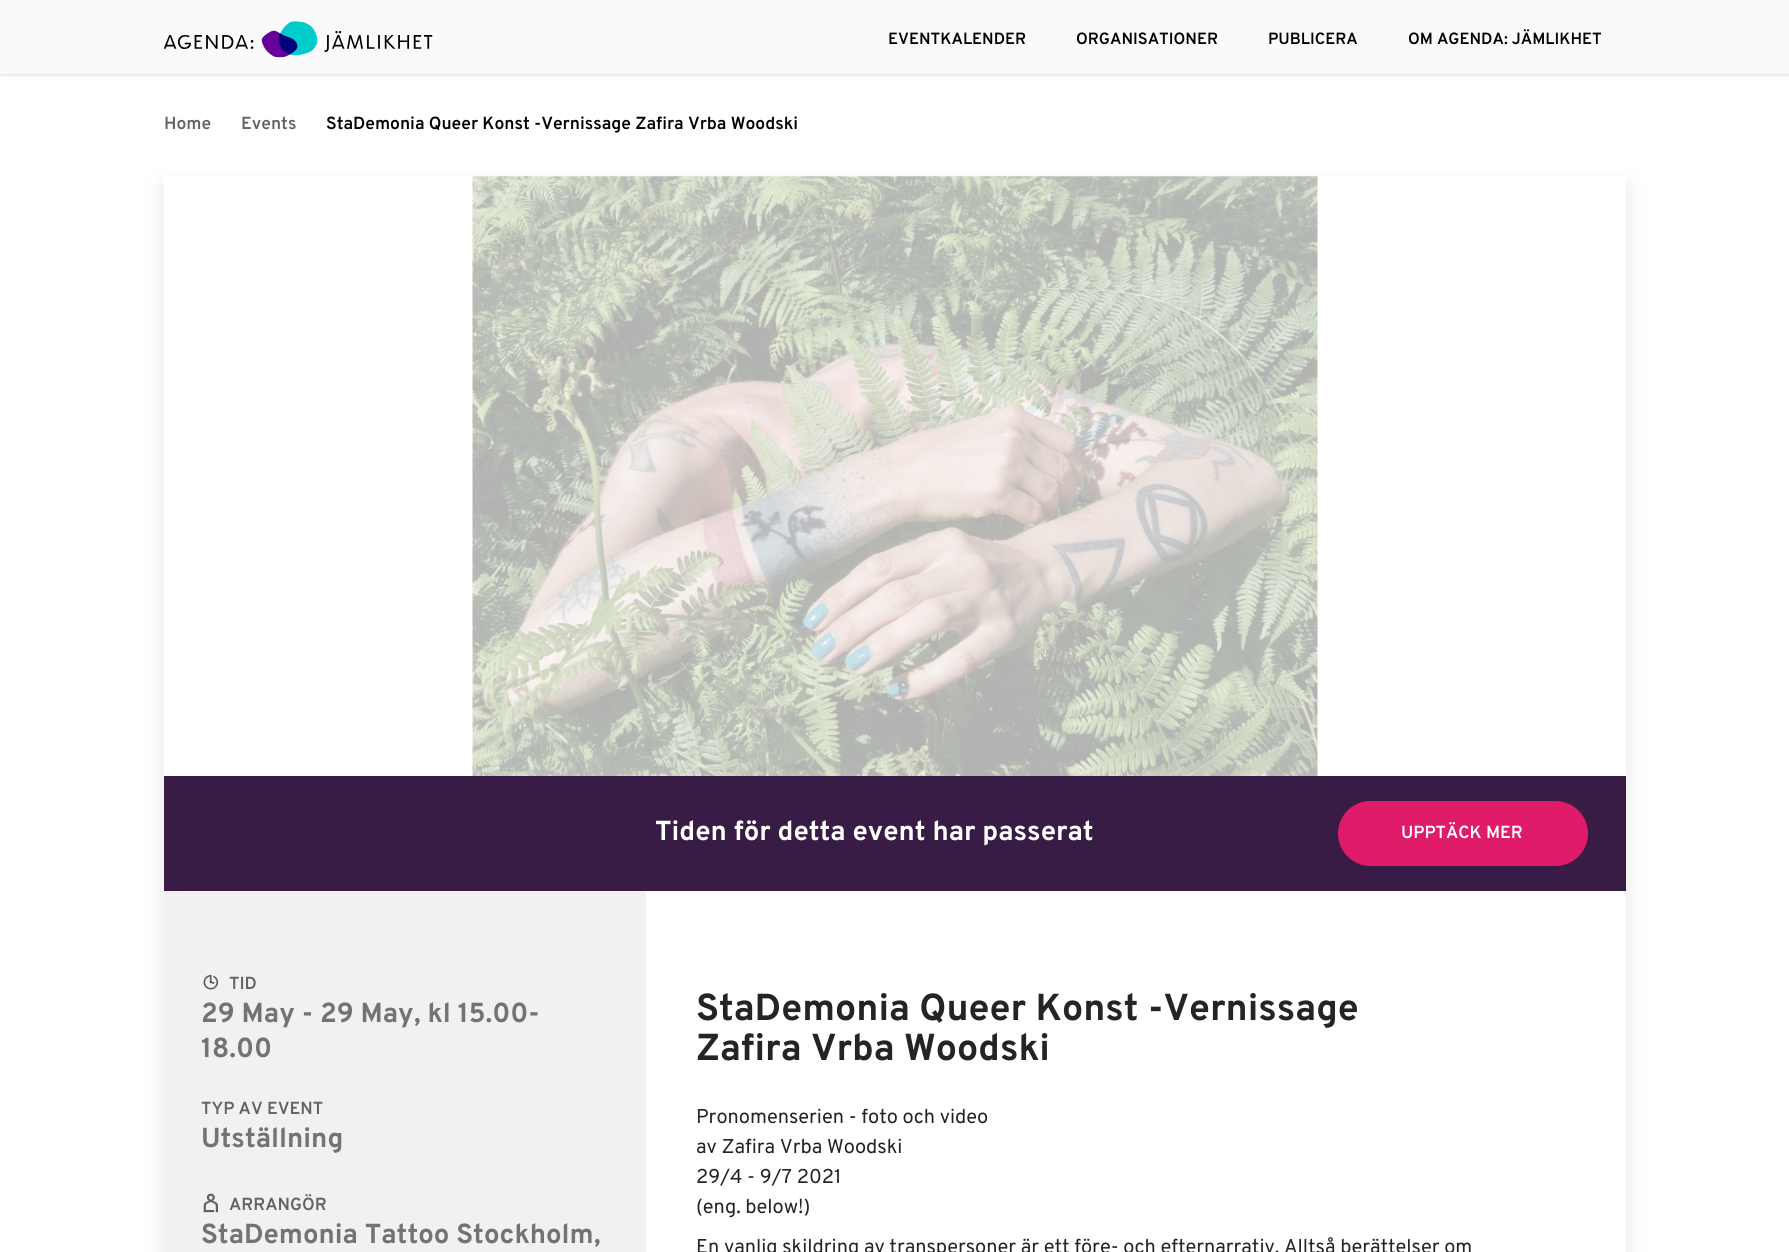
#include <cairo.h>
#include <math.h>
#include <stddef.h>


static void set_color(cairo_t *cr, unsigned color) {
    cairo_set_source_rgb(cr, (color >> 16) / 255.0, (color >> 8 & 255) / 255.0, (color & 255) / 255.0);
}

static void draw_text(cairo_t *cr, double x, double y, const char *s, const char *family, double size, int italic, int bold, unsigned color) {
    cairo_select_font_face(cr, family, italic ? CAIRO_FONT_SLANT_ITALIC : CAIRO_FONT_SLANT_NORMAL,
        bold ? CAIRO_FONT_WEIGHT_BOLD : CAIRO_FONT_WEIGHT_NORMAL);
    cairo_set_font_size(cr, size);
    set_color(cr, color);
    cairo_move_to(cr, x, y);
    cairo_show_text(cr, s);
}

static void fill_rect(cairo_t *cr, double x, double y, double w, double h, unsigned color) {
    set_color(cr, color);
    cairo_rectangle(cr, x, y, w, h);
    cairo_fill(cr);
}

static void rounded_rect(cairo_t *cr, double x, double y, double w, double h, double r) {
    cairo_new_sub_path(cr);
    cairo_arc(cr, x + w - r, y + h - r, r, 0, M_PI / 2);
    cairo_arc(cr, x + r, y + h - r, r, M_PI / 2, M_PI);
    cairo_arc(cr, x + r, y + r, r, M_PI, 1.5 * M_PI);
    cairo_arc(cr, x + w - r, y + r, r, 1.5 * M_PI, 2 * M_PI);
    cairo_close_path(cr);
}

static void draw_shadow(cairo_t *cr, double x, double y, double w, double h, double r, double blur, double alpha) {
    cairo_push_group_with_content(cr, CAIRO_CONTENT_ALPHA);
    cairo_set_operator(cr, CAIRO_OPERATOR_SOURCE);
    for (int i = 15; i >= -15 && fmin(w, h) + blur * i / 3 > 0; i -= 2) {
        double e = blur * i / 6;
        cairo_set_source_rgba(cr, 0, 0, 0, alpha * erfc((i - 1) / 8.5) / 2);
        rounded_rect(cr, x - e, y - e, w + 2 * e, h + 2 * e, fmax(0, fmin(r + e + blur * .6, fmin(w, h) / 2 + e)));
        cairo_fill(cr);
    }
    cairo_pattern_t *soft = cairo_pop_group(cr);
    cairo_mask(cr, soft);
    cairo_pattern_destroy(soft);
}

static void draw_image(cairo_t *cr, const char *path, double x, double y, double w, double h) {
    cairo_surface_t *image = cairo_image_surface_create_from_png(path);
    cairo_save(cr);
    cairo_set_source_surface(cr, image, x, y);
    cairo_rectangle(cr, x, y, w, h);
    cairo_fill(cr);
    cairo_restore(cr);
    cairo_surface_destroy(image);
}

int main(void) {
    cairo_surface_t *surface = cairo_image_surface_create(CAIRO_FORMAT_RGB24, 1789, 1252);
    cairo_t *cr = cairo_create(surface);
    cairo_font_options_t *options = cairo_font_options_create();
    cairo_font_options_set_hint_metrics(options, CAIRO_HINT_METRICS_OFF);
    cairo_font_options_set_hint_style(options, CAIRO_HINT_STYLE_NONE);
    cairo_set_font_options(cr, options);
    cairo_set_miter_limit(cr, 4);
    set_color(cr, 0xFFFFFF);
    cairo_paint(cr);
    set_color(cr, 0xE6DAD8);
    draw_shadow(cr, 0, 1, 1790, 74, 0, 2, 1);
    fill_rect(cr, 0, 0, 1789, 74, 0xFAFAFA);
    draw_image(cr, "assets/img1.png", 164, 21, 269, 37);
    draw_text(cr, 888, 44, "EVENTKALENDER", "Overpass SemiBold", 16.25, 0, 0, 0x000000);
    draw_text(cr, 1076, 44, "ORGANISATIONER", "Overpass SemiBold", 16.25, 0, 0, 0x000000);
    draw_text(cr, 1268, 44, "PUBLICERA", "Overpass SemiBold", 16.25, 0, 0, 0x000000);
    draw_text(cr, 1408, 44, "OM AGENDA: JÄMLIKHET", "Overpass SemiBold", 16.25, 0, 0, 0x000000);
    draw_text(cr, 164, 129, "Home", "Overpass SemiBold", 17.5, 0, 0, 0x626262);
    draw_text(cr, 241, 129, "Events", "Overpass SemiBold", 17.5, 0, 0, 0x626262);
    draw_text(cr, 326, 129, "StaDemonia Queer Konst -Vernissage Zafira Vrba Woodski", "Overpass SemiBold", 17.5, 0, 0, 0x000000);
    cairo_save(cr);
    cairo_set_fill_rule(cr, CAIRO_FILL_RULE_EVEN_ODD);
    cairo_new_path(cr);
    cairo_move_to(cr, 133, 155);
    cairo_line_to(cr, 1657, 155);
    cairo_line_to(cr, 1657, 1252);
    cairo_line_to(cr, 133, 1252);
    cairo_close_path(cr);
    cairo_move_to(cr, 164, 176);
    cairo_line_to(cr, 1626, 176);
    cairo_line_to(cr, 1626, 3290);
    cairo_line_to(cr, 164, 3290);
    cairo_close_path(cr);
    cairo_clip(cr);
    set_color(cr, 0xE5E5E5);
    draw_shadow(cr, 164, 186, 1462, 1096, 0, 10, 1);
    cairo_restore(cr);
    draw_image(cr, "assets/img2.png", 472, 176, 846, 600);
    fill_rect(cr, 164, 776, 1462, 115, 0x381C46);
    draw_text(cr, 655, 840, "Tiden för detta event har passerat", "Overpass", 27.5, 0, 1, 0xFFFFFF);
    set_color(cr, 0xE01B6A);
    rounded_rect(cr, 1338, 801, 250, 65, 32.5);
    cairo_fill(cr);
    draw_text(cr, 1401, 838, "UPPTÄCK MER", "Overpass SemiBold", 17.5, 0, 0, 0xFFFFFF);
    fill_rect(cr, 164, 891, 482, 361, 0xF1F1F1);
    draw_image(cr, "assets/img3.png", 203, 974, 16, 16);
    draw_text(cr, 229, 989, "TID", "Overpass SemiBold", 17.5, 0, 0, 0x626262);
    draw_text(cr, 201, 1022, "29 May - 29 May, kl 15.00-", "Overpass", 27.5, 0, 1, 0x737373);
    draw_text(cr, 201, 1057, "18.00", "Overpass", 27.5, 0, 1, 0x737373);
    draw_text(cr, 201, 1114, "TYP AV EVENT", "Overpass SemiBold", 17.5, 0, 0, 0x626262);
    draw_text(cr, 201, 1147, "Utställning", "Overpass", 27.5, 0, 1, 0x737373);
    draw_image(cr, "assets/img4.png", 203, 1193, 15, 20);
    draw_text(cr, 229, 1210, "ARRANGÖR", "Overpass SemiBold", 17.5, 0, 0, 0x626262);
    draw_text(cr, 201, 1243, "StaDemonia Tattoo Stockholm,", "Overpass", 27.5, 0, 1, 0x737373);
    draw_text(cr, 696, 1020, "StaDemonia Queer Konst -Vernissage", "Overpass", 37.5, 0, 1, 0x242424);
    draw_text(cr, 696, 1060, "Zafira Vrba Woodski", "Overpass", 37.5, 0, 1, 0x242424);
    draw_text(cr, 696, 1123, "Pronomenserien - foto och video", "Overpass", 20, 0, 0, 0x242424);
    draw_text(cr, 696, 1153, "av Zafira Vrba Woodski", "Overpass", 20, 0, 0, 0x242424);
    draw_text(cr, 696, 1183, "29/4 - 9/7 2021", "Overpass", 20, 0, 0, 0x242424);
    draw_text(cr, 696, 1213, "(eng. below!)", "Overpass", 20, 0, 0, 0x242424);
    draw_text(cr, 696, 1253, "En vanlig skildring av transpersoner är ett före- och efternarrativ. Alltså berättelser om", "Overpass", 20, 0, 0, 0x242424);
    cairo_surface_write_to_png(surface, "output.png");
    cairo_font_options_destroy(options);
    cairo_destroy(cr);
    cairo_surface_destroy(surface);
    return 0;
}
